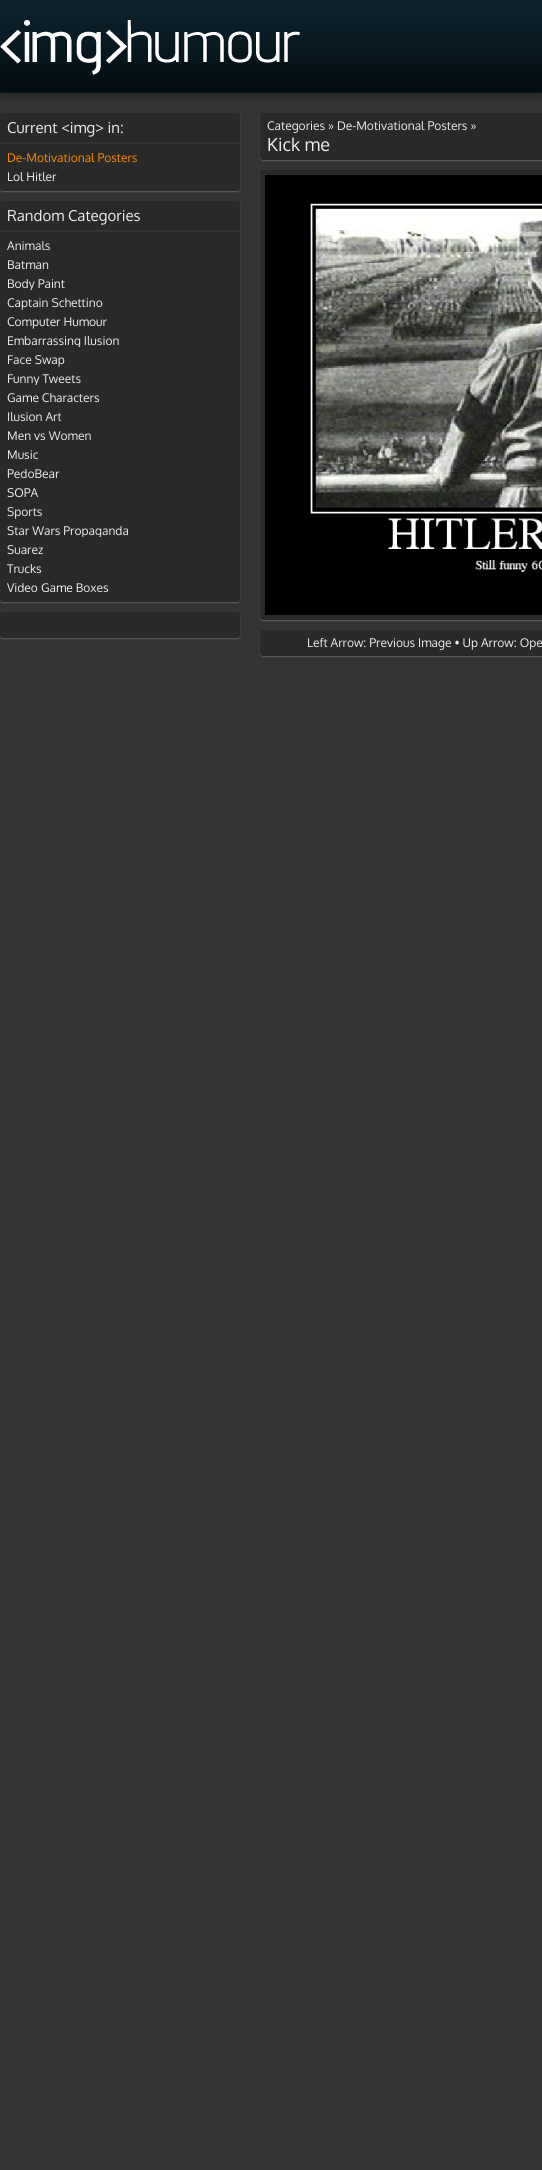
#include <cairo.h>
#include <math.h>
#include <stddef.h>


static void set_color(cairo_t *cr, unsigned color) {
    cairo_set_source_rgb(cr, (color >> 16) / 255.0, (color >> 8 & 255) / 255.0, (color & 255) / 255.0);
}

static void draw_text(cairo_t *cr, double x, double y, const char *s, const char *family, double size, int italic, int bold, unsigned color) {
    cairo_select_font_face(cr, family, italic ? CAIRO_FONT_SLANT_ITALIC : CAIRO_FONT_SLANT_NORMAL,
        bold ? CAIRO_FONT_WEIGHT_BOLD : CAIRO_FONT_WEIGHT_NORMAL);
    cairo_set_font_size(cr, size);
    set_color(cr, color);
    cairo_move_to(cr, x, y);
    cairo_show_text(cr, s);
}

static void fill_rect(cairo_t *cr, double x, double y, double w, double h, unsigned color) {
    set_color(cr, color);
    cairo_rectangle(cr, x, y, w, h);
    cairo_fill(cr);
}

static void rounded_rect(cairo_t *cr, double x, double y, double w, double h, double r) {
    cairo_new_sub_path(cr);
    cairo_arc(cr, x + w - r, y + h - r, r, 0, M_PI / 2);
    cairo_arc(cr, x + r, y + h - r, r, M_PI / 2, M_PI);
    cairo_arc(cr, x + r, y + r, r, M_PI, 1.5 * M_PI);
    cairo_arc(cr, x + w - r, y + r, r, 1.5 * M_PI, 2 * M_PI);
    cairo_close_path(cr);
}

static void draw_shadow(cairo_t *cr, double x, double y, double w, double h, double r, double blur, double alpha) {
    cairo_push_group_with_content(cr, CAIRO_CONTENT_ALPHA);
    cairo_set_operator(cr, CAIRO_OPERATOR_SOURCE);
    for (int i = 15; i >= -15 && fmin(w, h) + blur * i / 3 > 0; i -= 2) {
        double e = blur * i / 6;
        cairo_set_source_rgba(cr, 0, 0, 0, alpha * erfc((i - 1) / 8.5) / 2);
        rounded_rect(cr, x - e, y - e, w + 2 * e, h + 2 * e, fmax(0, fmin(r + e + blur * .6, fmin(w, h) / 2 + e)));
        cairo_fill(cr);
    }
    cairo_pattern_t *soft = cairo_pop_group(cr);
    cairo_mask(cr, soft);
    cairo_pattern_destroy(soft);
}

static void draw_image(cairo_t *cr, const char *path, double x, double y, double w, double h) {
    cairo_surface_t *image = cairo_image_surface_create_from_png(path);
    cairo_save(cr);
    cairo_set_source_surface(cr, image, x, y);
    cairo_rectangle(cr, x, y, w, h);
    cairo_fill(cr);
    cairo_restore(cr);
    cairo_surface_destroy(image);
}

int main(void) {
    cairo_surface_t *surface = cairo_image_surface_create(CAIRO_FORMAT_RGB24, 542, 2170);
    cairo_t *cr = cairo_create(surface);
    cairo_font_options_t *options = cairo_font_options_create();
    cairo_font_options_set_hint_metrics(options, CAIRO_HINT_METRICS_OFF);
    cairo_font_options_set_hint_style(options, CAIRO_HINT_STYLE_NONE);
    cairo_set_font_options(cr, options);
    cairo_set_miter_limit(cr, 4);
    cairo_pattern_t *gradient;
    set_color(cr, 0x333333);
    cairo_paint(cr);
    set_color(cr, 0x0A0A0A);
    draw_shadow(cr, 0, 5, 542, 93, 0, 2.5, 0.3);
    gradient = cairo_pattern_create_linear(271, 0, 271, 92);
    cairo_pattern_add_color_stop_rgba(gradient, 0, 0.047, 0.141, 0.188, 1);
    cairo_pattern_add_color_stop_rgba(gradient, 1, 0.016, 0.051, 0.067, 1);
    cairo_set_source(cr, gradient);
    cairo_pattern_destroy(gradient);
    cairo_rectangle(cr, 0, 0, 542, 92);
    cairo_fill(cr);
    fill_rect(cr, 0, 92, 542, 1, 0x06151C);
    draw_image(cr, "assets/img1.png", 0, 20, 300, 55);
    cairo_save(cr);
    cairo_set_fill_rule(cr, CAIRO_FILL_RULE_EVEN_ODD);
    cairo_new_path(cr);
    cairo_move_to(cr, 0, 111);
    cairo_line_to(cr, 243, 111);
    cairo_line_to(cr, 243, 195);
    cairo_line_to(cr, 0, 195);
    cairo_close_path(cr);
    cairo_move_to(cr, 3, 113);
    cairo_line_to(cr, 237, 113);
    cairo_curve_to(cr, 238.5, 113, 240, 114.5, 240, 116);
    cairo_line_to(cr, 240, 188);
    cairo_curve_to(cr, 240, 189.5, 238.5, 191, 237, 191);
    cairo_line_to(cr, 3, 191);
    cairo_curve_to(cr, 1.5, 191, 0, 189.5, 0, 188);
    cairo_line_to(cr, 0, 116);
    cairo_curve_to(cr, 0, 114.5, 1.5, 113, 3, 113);
    cairo_close_path(cr);
    cairo_clip(cr);
    set_color(cr, 0xFFFFFF);
    draw_shadow(cr, 0, 114, 240, 78, 3, 0.5, 0.2);
    cairo_restore(cr);
    cairo_set_source_rgba(cr, 0, 0, 0, 0.2);
    rounded_rect(cr, 0, 113, 240, 78, 3);
    cairo_fill(cr);
    fill_rect(cr, 0, 142, 240, 2, 0x333333);
    draw_text(cr, 7, 133, "Current <img> in:", "Oxygen", 15, 0, 0, 0xEEEEEE);
    draw_text(cr, 7, 162, "De-Motivational Posters", "Oxygen", 12, 0, 0, 0xFF8800);
    draw_text(cr, 7, 181, "Lol Hitler", "Oxygen", 12, 0, 0, 0xEEEEEE);
    cairo_save(cr);
    cairo_set_fill_rule(cr, CAIRO_FILL_RULE_EVEN_ODD);
    cairo_new_path(cr);
    cairo_move_to(cr, 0, 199);
    cairo_line_to(cr, 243, 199);
    cairo_line_to(cr, 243, 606);
    cairo_line_to(cr, 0, 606);
    cairo_close_path(cr);
    cairo_move_to(cr, 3, 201);
    cairo_line_to(cr, 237, 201);
    cairo_curve_to(cr, 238.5, 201, 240, 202.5, 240, 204);
    cairo_line_to(cr, 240, 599);
    cairo_curve_to(cr, 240, 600.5, 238.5, 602, 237, 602);
    cairo_line_to(cr, 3, 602);
    cairo_curve_to(cr, 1.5, 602, 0, 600.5, 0, 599);
    cairo_line_to(cr, 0, 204);
    cairo_curve_to(cr, 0, 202.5, 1.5, 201, 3, 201);
    cairo_close_path(cr);
    cairo_clip(cr);
    set_color(cr, 0xFFFFFF);
    draw_shadow(cr, 0, 202, 240, 401, 3, 0.5, 0.2);
    cairo_restore(cr);
    cairo_set_source_rgba(cr, 0, 0, 0, 0.2);
    rounded_rect(cr, 0, 201, 240, 401, 3);
    cairo_fill(cr);
    fill_rect(cr, 0, 230, 240, 2, 0x333333);
    draw_text(cr, 7, 221, "Random Categories", "Oxygen", 15, 0, 0, 0xEEEEEE);
    draw_text(cr, 7, 250, "Animals", "Oxygen", 12, 0, 0, 0xEEEEEE);
    draw_text(cr, 7, 269, "Batman", "Oxygen", 12, 0, 0, 0xEEEEEE);
    cairo_save(cr);
    cairo_rectangle(cr, 7, 278, 180, 12);
    cairo_clip(cr);
    draw_text(cr, 7, 288, "Body Paint", "Oxygen", 12, 0, 0, 0xEEEEEE);
    cairo_restore(cr);
    draw_text(cr, 7, 307, "Captain Schettino", "Oxygen", 12, 0, 0, 0xEEEEEE);
    draw_text(cr, 7, 326, "Computer Humour", "Oxygen", 12, 0, 0, 0xEEEEEE);
    cairo_save(cr);
    cairo_rectangle(cr, 7, 335, 180, 12);
    cairo_clip(cr);
    draw_text(cr, 7, 345, "Embarrassing Ilusion", "Oxygen", 12, 0, 0, 0xEEEEEE);
    cairo_restore(cr);
    draw_text(cr, 7, 364, "Face Swap", "Oxygen", 12, 0, 0, 0xEEEEEE);
    cairo_save(cr);
    cairo_rectangle(cr, 7, 373, 180, 12);
    cairo_clip(cr);
    draw_text(cr, 7, 383, "Funny Tweets", "Oxygen", 12, 0, 0, 0xEEEEEE);
    cairo_restore(cr);
    draw_text(cr, 7, 402, "Game Characters", "Oxygen", 12, 0, 0, 0xEEEEEE);
    draw_text(cr, 7, 421, "Ilusion Art", "Oxygen", 12, 0, 0, 0xEEEEEE);
    draw_text(cr, 7, 440, "Men vs Women", "Oxygen", 12, 0, 0, 0xEEEEEE);
    draw_text(cr, 7, 459, "Music", "Oxygen", 12, 0, 0, 0xEEEEEE);
    draw_text(cr, 7, 478, "PedoBear", "Oxygen", 12, 0, 0, 0xEEEEEE);
    draw_text(cr, 7, 497, "SOPA", "Oxygen", 12, 0, 0, 0xEEEEEE);
    draw_text(cr, 7, 516, "Sports", "Oxygen", 12, 0, 0, 0xEEEEEE);
    cairo_save(cr);
    cairo_rectangle(cr, 7, 525, 180, 12);
    cairo_clip(cr);
    draw_text(cr, 7, 535, "Star Wars Propaganda", "Oxygen", 12, 0, 0, 0xEEEEEE);
    cairo_restore(cr);
    draw_text(cr, 7, 554, "Suarez", "Oxygen", 12, 0, 0, 0xEEEEEE);
    draw_text(cr, 7, 573, "Trucks", "Oxygen", 12, 0, 0, 0xEEEEEE);
    draw_text(cr, 7, 592, "Video Game Boxes", "Oxygen", 12, 0, 0, 0xEEEEEE);
    cairo_save(cr);
    cairo_set_fill_rule(cr, CAIRO_FILL_RULE_EVEN_ODD);
    cairo_new_path(cr);
    cairo_move_to(cr, 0, 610);
    cairo_line_to(cr, 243, 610);
    cairo_line_to(cr, 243, 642);
    cairo_line_to(cr, 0, 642);
    cairo_close_path(cr);
    cairo_move_to(cr, 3, 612);
    cairo_line_to(cr, 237, 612);
    cairo_curve_to(cr, 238.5, 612, 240, 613.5, 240, 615);
    cairo_line_to(cr, 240, 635);
    cairo_curve_to(cr, 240, 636.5, 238.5, 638, 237, 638);
    cairo_line_to(cr, 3, 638);
    cairo_curve_to(cr, 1.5, 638, 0, 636.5, 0, 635);
    cairo_line_to(cr, 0, 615);
    cairo_curve_to(cr, 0, 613.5, 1.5, 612, 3, 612);
    cairo_close_path(cr);
    cairo_clip(cr);
    set_color(cr, 0xFFFFFF);
    draw_shadow(cr, 0, 613, 240, 26, 3, 0.5, 0.2);
    cairo_restore(cr);
    cairo_set_source_rgba(cr, 0, 0, 0, 0.2);
    rounded_rect(cr, 0, 612, 240, 26, 3);
    cairo_fill(cr);
    cairo_save(cr);
    cairo_set_fill_rule(cr, CAIRO_FILL_RULE_EVEN_ODD);
    cairo_new_path(cr);
    cairo_move_to(cr, 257, 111);
    cairo_line_to(cr, 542, 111);
    cairo_line_to(cr, 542, 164);
    cairo_line_to(cr, 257, 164);
    cairo_close_path(cr);
    cairo_move_to(cr, 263, 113);
    cairo_line_to(cr, 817, 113);
    cairo_curve_to(cr, 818.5, 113, 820, 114.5, 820, 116);
    cairo_line_to(cr, 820, 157);
    cairo_curve_to(cr, 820, 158.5, 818.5, 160, 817, 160);
    cairo_line_to(cr, 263, 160);
    cairo_curve_to(cr, 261.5, 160, 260, 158.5, 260, 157);
    cairo_line_to(cr, 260, 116);
    cairo_curve_to(cr, 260, 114.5, 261.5, 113, 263, 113);
    cairo_close_path(cr);
    cairo_clip(cr);
    set_color(cr, 0xFFFFFF);
    draw_shadow(cr, 260, 114, 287, 47, 3, 0.5, 0.2);
    cairo_restore(cr);
    rounded_rect(cr, 260, 113, 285, 47, 3);
    cairo_fill(cr);
    draw_text(cr, 267, 130, "Categories » De-Motivational Posters »", "Oxygen", 12, 0, 0, 0xEEEEEE);
    draw_text(cr, 267, 151, "Kick me", "Oxygen", 18, 0, 0, 0xEEEEEE);
    cairo_save(cr);
    cairo_set_fill_rule(cr, CAIRO_FILL_RULE_EVEN_ODD);
    cairo_new_path(cr);
    cairo_move_to(cr, 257, 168);
    cairo_line_to(cr, 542, 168);
    cairo_line_to(cr, 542, 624);
    cairo_line_to(cr, 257, 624);
    cairo_close_path(cr);
    cairo_move_to(cr, 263, 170);
    cairo_line_to(cr, 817, 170);
    cairo_curve_to(cr, 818.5, 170, 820, 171.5, 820, 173);
    cairo_line_to(cr, 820, 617);
    cairo_curve_to(cr, 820, 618.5, 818.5, 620, 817, 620);
    cairo_line_to(cr, 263, 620);
    cairo_curve_to(cr, 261.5, 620, 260, 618.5, 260, 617);
    cairo_line_to(cr, 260, 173);
    cairo_curve_to(cr, 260, 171.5, 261.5, 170, 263, 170);
    cairo_close_path(cr);
    cairo_clip(cr);
    set_color(cr, 0xFFFFFF);
    draw_shadow(cr, 260, 171, 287, 450, 3, 0.5, 0.2);
    cairo_restore(cr);
    cairo_set_source_rgba(cr, 0, 0, 0, 0.2);
    rounded_rect(cr, 260, 170, 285, 450, 3);
    cairo_fill(cr);
    draw_image(cr, "assets/img2.png", 265, 175, 277, 440);
    cairo_save(cr);
    cairo_set_fill_rule(cr, CAIRO_FILL_RULE_EVEN_ODD);
    cairo_new_path(cr);
    cairo_move_to(cr, 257, 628);
    cairo_line_to(cr, 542, 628);
    cairo_line_to(cr, 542, 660);
    cairo_line_to(cr, 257, 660);
    cairo_close_path(cr);
    cairo_move_to(cr, 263, 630);
    cairo_line_to(cr, 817, 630);
    cairo_curve_to(cr, 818.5, 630, 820, 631.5, 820, 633);
    cairo_line_to(cr, 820, 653);
    cairo_curve_to(cr, 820, 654.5, 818.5, 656, 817, 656);
    cairo_line_to(cr, 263, 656);
    cairo_curve_to(cr, 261.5, 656, 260, 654.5, 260, 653);
    cairo_line_to(cr, 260, 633);
    cairo_curve_to(cr, 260, 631.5, 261.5, 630, 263, 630);
    cairo_close_path(cr);
    cairo_clip(cr);
    set_color(cr, 0xFFFFFF);
    draw_shadow(cr, 260, 631, 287, 26, 3, 0.5, 0.2);
    cairo_restore(cr);
    rounded_rect(cr, 260, 630, 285, 26, 3);
    cairo_fill(cr);
    draw_text(cr, 307, 647, "Left Arrow: Previous Image • Up Arrow: Ope", "Oxygen", 12, 0, 0, 0xEEEEEE);
    cairo_surface_write_to_png(surface, "output.png");
    cairo_font_options_destroy(options);
    cairo_destroy(cr);
    cairo_surface_destroy(surface);
    return 0;
}
